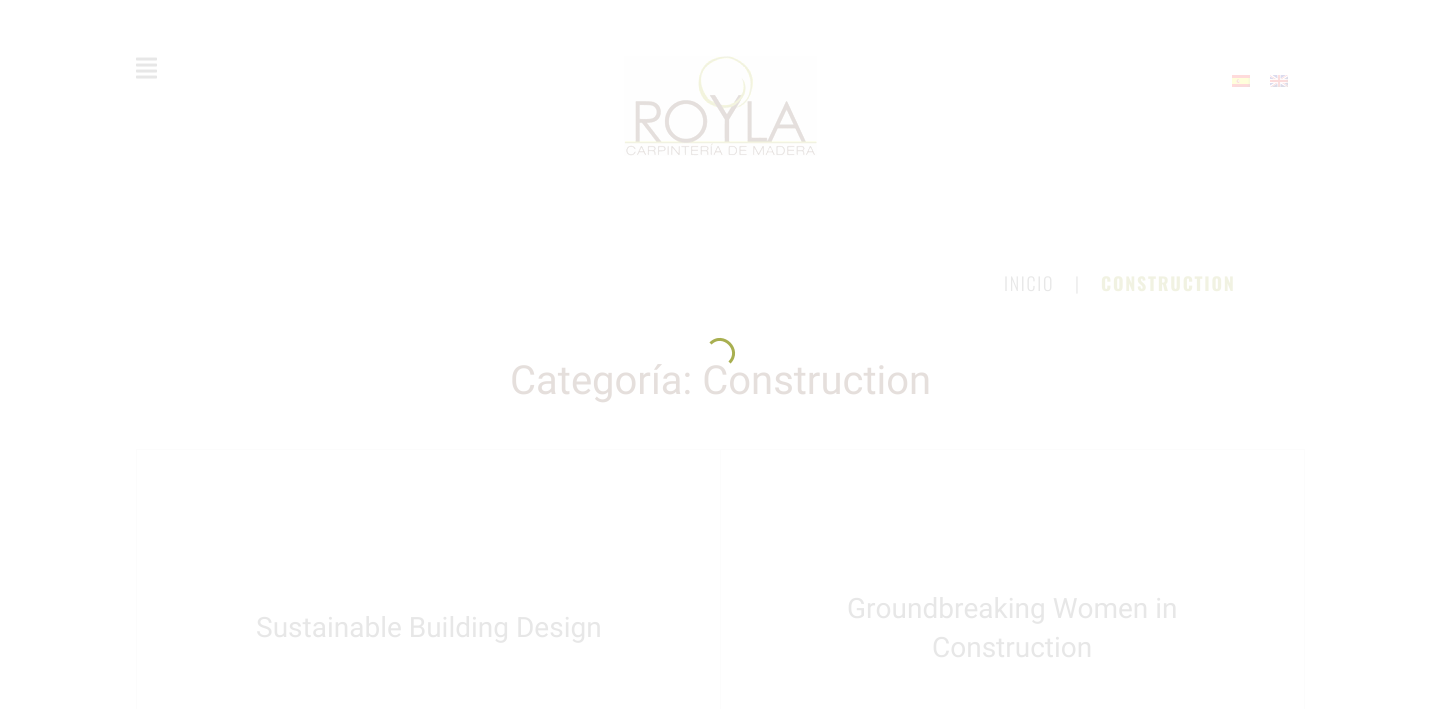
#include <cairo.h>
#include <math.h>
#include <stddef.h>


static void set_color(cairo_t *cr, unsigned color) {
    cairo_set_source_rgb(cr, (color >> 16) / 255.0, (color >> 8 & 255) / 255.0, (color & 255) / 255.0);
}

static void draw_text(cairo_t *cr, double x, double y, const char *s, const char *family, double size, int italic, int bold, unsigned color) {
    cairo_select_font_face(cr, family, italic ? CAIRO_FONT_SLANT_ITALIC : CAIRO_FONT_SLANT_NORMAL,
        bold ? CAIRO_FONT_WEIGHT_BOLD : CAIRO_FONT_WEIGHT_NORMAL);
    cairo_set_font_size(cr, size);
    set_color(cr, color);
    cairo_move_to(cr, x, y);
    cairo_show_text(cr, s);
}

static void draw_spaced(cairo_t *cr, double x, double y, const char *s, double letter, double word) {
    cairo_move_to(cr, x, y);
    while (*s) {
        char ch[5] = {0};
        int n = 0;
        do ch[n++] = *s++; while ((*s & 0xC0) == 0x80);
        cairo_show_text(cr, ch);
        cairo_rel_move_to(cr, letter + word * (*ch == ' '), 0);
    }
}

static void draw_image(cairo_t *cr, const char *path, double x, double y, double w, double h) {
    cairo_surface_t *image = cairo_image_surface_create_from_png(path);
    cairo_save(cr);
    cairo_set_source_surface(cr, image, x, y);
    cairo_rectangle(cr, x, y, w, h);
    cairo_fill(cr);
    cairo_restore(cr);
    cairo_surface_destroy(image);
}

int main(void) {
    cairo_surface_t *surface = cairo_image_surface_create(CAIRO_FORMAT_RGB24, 1442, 709);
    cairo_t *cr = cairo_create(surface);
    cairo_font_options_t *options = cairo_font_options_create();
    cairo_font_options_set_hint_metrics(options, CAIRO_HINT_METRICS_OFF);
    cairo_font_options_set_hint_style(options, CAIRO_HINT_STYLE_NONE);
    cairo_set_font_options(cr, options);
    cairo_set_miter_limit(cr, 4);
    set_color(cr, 0xFFFFFF);
    cairo_paint(cr);
    draw_image(cr, "assets/img1.png", 136, 57, 21, 22);
    draw_image(cr, "assets/img2.png", 624, 56, 193, 100);
    draw_image(cr, "assets/img3.png", 1232, 75, 18, 12);
    draw_image(cr, "assets/img4.png", 1270, 75, 18, 12);
    cairo_select_font_face(cr, "Oswald Light", CAIRO_FONT_SLANT_NORMAL, CAIRO_FONT_WEIGHT_NORMAL);
    cairo_set_font_size(cr, 18);
    set_color(cr, 0xE7E7E7);
    draw_spaced(cr, 1004, 291, "INICIO", 1.75, 0);
    draw_spaced(cr, 1075, 291, "|", 1.75, 0);
    cairo_select_font_face(cr, "Oswald", CAIRO_FONT_SLANT_NORMAL, CAIRO_FONT_WEIGHT_BOLD);
    set_color(cr, 0xF1F2E2);
    draw_spaced(cr, 1101, 291, "CONSTRUCTION", 1.75, 0);
    draw_text(cr, 510, 394, "Categoría: Construction", "Roboto", 40, 0, 0, 0xE5DFDC);
    cairo_rectangle(cr, 136.5, 449.5, 584, 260);
    set_color(cr, 0xFCFCFC);
    cairo_set_line_width(cr, 1);
    cairo_stroke(cr);
    draw_text(cr, 256, 637, "Sustainable Building Design", "Roboto", 28, 0, 0, 0xE7E7E7);
    cairo_rectangle(cr, 720.5, 449.5, 584, 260);
    set_color(cr, 0xFCFCFC);
    cairo_stroke(cr);
    draw_text(cr, 847, 618, "Groundbreaking Women in", "Roboto", 28, 0, 0, 0xE7E7E7);
    draw_text(cr, 932, 657, "Construction", "Roboto", 28, 0, 0, 0xE7E7E7);
    cairo_new_path(cr);
    cairo_move_to(cr, 710.5, 343.5);
    cairo_curve_to(cr, 723, 331, 742, 350, 729.5, 362.5);
    set_color(cr, 0xA8AF50);
    cairo_set_line_width(cr, 3);
    cairo_stroke(cr);
    cairo_surface_write_to_png(surface, "output.png");
    cairo_font_options_destroy(options);
    cairo_destroy(cr);
    cairo_surface_destroy(surface);
    return 0;
}
